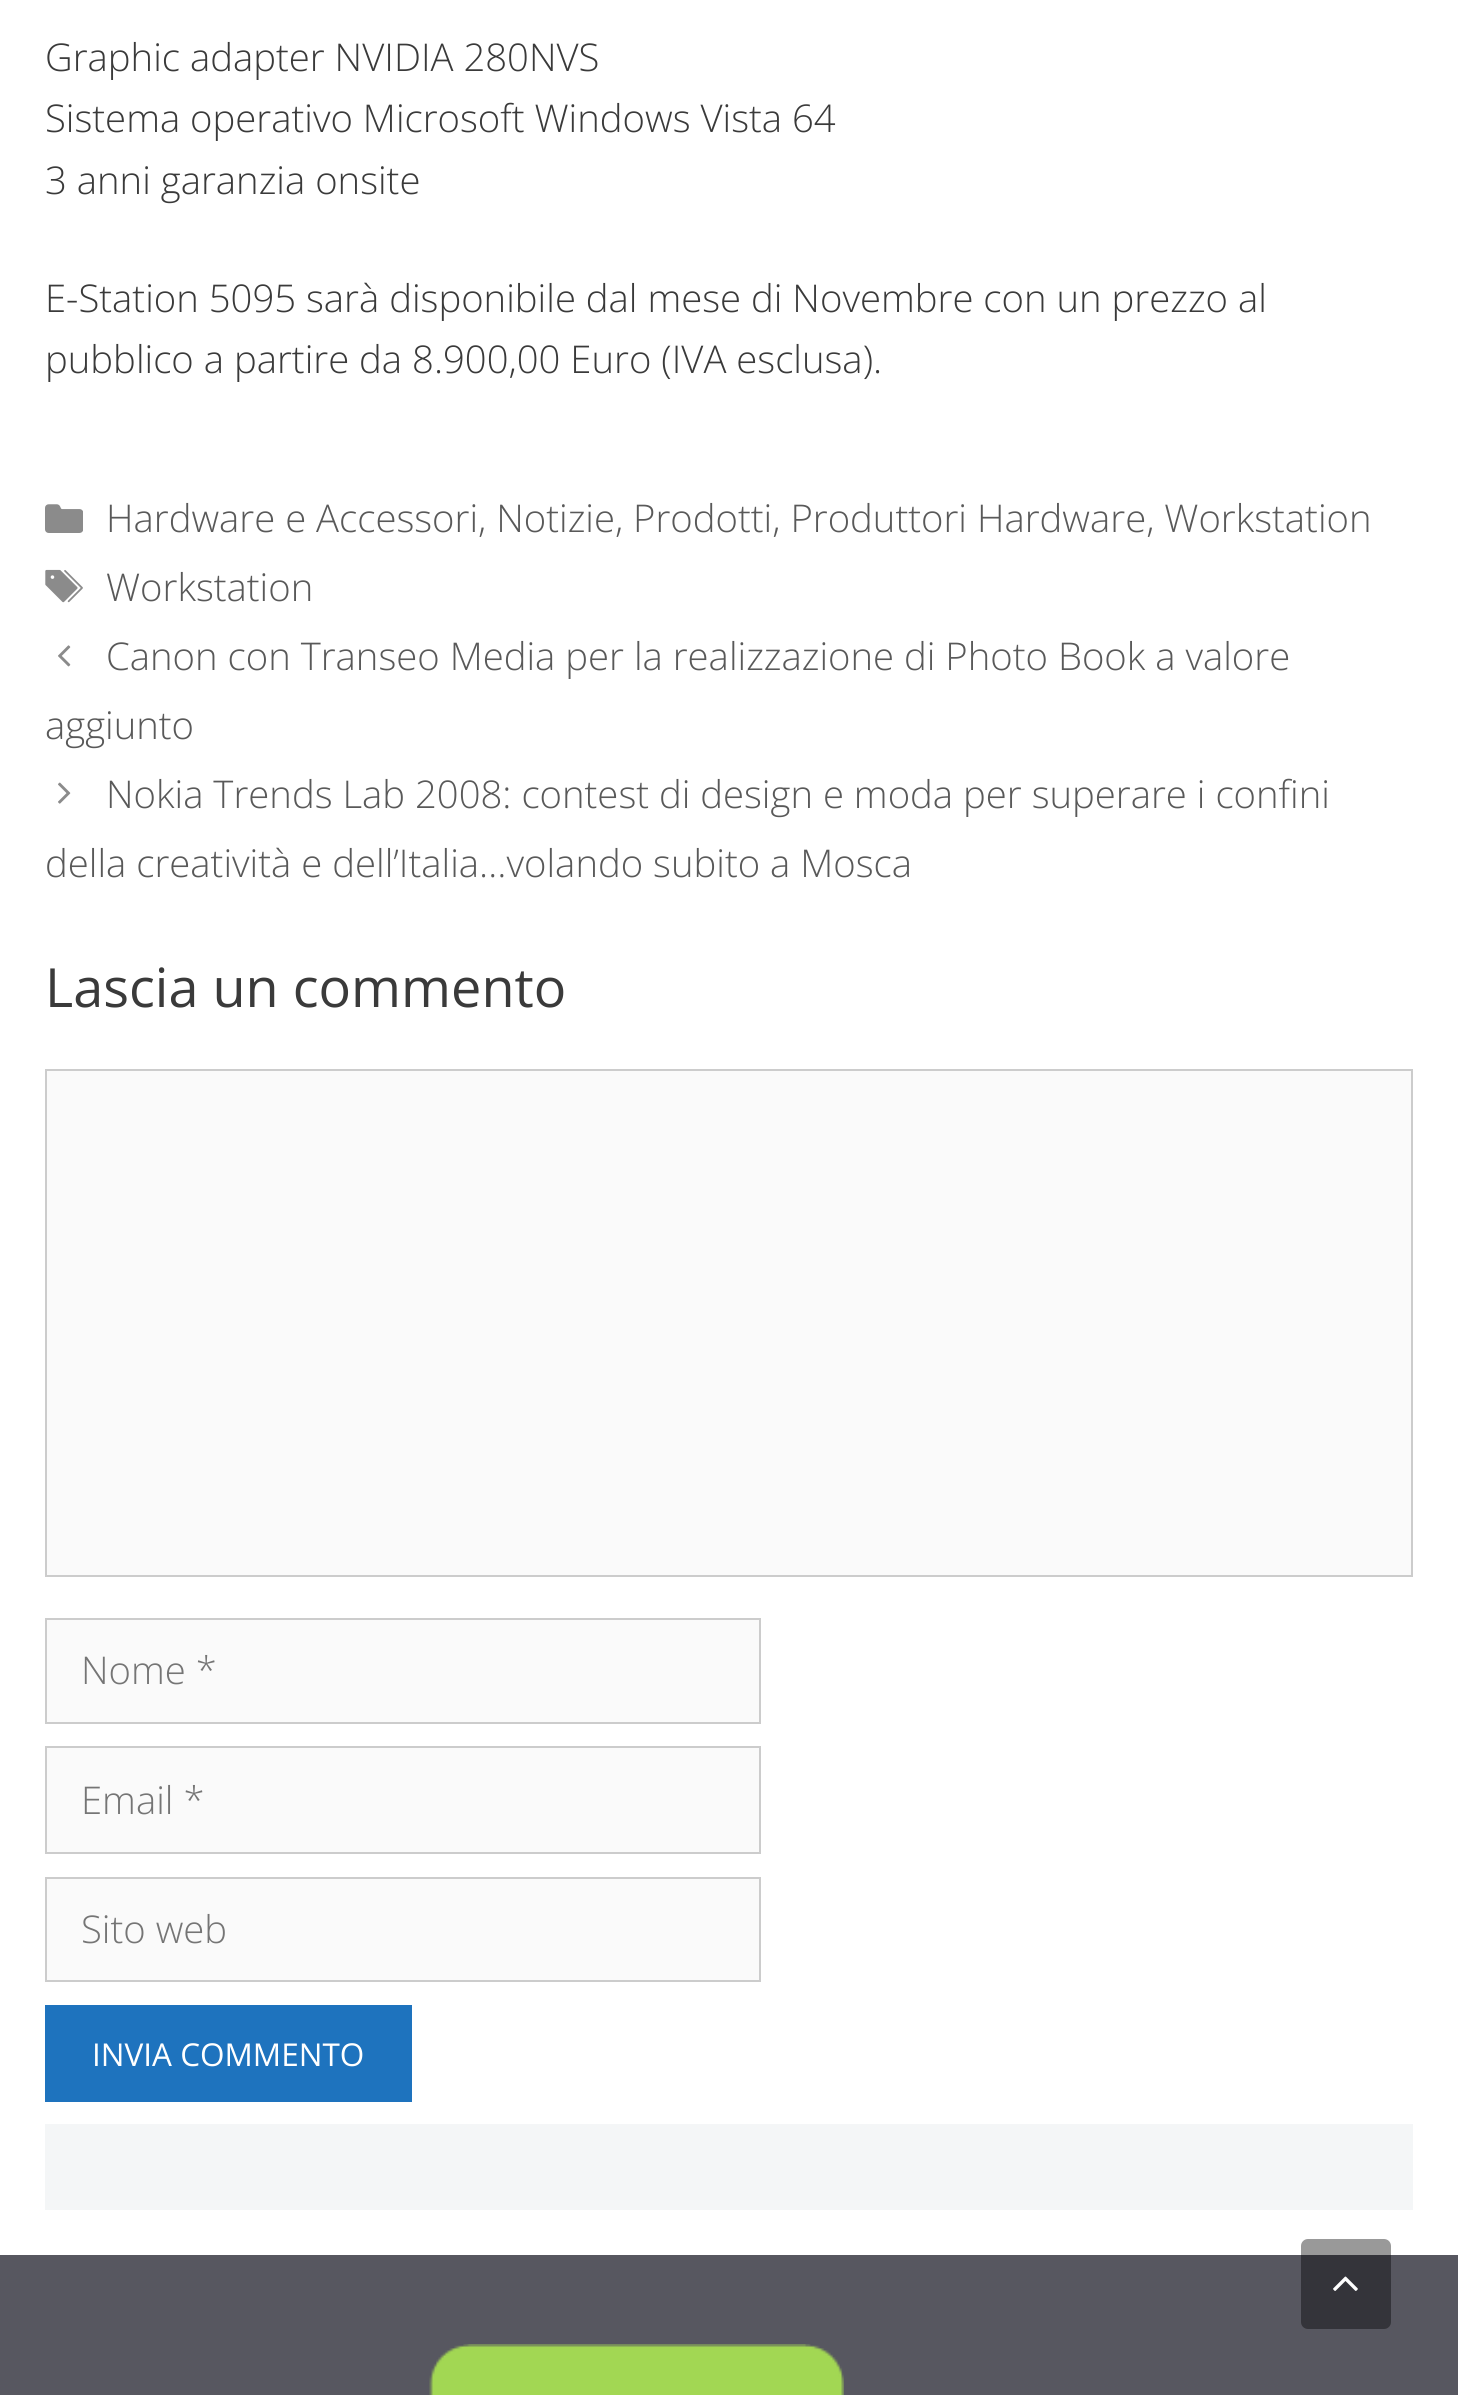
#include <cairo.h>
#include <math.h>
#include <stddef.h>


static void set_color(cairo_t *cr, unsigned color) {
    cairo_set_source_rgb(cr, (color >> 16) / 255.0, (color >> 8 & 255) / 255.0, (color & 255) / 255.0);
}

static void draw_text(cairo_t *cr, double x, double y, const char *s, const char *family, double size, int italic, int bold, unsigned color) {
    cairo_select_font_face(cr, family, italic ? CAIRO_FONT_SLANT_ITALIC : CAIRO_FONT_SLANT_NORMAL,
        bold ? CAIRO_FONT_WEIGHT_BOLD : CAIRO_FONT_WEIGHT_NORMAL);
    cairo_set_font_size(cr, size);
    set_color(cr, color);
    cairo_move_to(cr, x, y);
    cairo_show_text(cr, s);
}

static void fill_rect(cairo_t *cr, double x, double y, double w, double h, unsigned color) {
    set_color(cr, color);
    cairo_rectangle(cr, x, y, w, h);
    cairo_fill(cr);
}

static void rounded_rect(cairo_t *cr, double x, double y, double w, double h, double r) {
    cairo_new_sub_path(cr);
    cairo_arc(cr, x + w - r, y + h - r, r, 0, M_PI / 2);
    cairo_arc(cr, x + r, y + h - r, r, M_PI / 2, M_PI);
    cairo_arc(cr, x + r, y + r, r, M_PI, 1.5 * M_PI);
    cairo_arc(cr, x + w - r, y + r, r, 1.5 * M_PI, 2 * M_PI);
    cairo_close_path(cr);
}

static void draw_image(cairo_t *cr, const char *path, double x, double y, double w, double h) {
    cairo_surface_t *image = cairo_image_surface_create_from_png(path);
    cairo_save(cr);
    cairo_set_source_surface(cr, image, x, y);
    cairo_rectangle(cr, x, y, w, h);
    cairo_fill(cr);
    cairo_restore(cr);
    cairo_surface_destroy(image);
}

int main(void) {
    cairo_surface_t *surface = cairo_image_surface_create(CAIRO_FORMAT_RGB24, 1458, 2395);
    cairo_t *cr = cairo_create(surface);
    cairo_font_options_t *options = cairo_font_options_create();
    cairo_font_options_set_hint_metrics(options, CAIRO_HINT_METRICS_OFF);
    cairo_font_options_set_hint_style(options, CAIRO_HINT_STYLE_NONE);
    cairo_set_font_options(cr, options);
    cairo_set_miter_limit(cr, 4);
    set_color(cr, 0xFFFFFF);
    cairo_paint(cr);
    draw_text(cr, 45, 71, "Graphic adapter NVIDIA 280NVS", "Open Sans Light", 38.25, 0, 0, 0x3A3A3A);
    draw_text(cr, 45, 132, "Sistema operativo Microsoft Windows Vista 64", "Open Sans Light", 38.25, 0, 0, 0x3A3A3A);
    draw_text(cr, 45, 194, "3 anni garanzia onsite", "Open Sans Light", 38.25, 0, 0, 0x3A3A3A);
    draw_text(cr, 45, 312, "E-Station 5095 sarà disponibile dal mese di Novembre con un prezzo al", "Open Sans Light", 38.25, 0, 0, 0x3A3A3A);
    draw_text(cr, 45, 373, "pubblico a partire da 8.900,00 Euro (IVA esclusa).", "Open Sans Light", 38.25, 0, 0, 0x3A3A3A);
    draw_image(cr, "assets/img1.png", 45, 504, 38, 29);
    draw_text(cr, 106, 532, "Hardware e Accessori, Notizie, Prodotti, Produttori Hardware, Workstation", "Open Sans Light", 38.25, 0, 0, 0x595959);
    draw_image(cr, "assets/img2.png", 45, 569, 38, 34);
    draw_text(cr, 106, 601, "Workstation", "Open Sans Light", 38.25, 0, 0, 0x595959);
    draw_image(cr, "assets/img3.png", 58, 645, 13, 22);
    draw_text(cr, 106, 670, "Canon con Transeo Media per la realizzazione di Photo Book a valore", "Open Sans Light", 38.25, 0, 0, 0x595959);
    draw_text(cr, 45, 739, "aggiunto", "Open Sans Light", 38.25, 0, 0, 0x595959);
    draw_image(cr, "assets/img4.png", 58, 782, 13, 22);
    draw_text(cr, 106, 808, "Nokia Trends Lab 2008: contest di design e moda per superare i confini", "Open Sans Light", 38.25, 0, 0, 0x595959);
    draw_text(cr, 45, 877, "della creatività e dell’Italia…volando subito a Mosca", "Open Sans Light", 38.25, 0, 0, 0x595959);
    draw_text(cr, 45, 1007, "Lascia un commento", "Open Sans", 54, 0, 0, 0x3A3A3A);
    set_color(cr, 0xFAFAFA);
    cairo_rectangle(cr, 46, 1070, 1366, 506);
    cairo_fill_preserve(cr);
    set_color(cr, 0xCCCCCC);
    cairo_stroke(cr);
    set_color(cr, 0xFAFAFA);
    cairo_rectangle(cr, 46, 1619, 714, 104);
    cairo_fill_preserve(cr);
    set_color(cr, 0xCCCCCC);
    cairo_stroke(cr);
    draw_text(cr, 81, 1684, "Nome *", "Open Sans Light", 38.25, 0, 0, 0x757575);
    set_color(cr, 0xFAFAFA);
    cairo_rectangle(cr, 46, 1747, 714, 106);
    cairo_fill_preserve(cr);
    set_color(cr, 0xCCCCCC);
    cairo_stroke(cr);
    draw_text(cr, 81, 1814, "Email *", "Open Sans Light", 38.25, 0, 0, 0x757575);
    set_color(cr, 0xFAFAFA);
    cairo_rectangle(cr, 46, 1878, 714, 103);
    cairo_fill_preserve(cr);
    set_color(cr, 0xCCCCCC);
    cairo_stroke(cr);
    draw_text(cr, 81, 1943, "Sito web", "Open Sans Light", 38.25, 0, 0, 0x757575);
    fill_rect(cr, 45, 2005, 367, 97, 0x1E73BE);
    draw_text(cr, 92, 2066, "INVIA COMMENTO", "Open Sans", 31.5, 0, 0, 0xFFFFFF);
    fill_rect(cr, 45, 2124, 1368, 86, 0xF4F6F7);
    fill_rect(cr, 0, 2255, 1458, 140, 0x575760);
    cairo_set_source_rgba(cr, 0, 0, 0, 0.4);
    rounded_rect(cr, 1301, 2239, 90, 90, 7);
    cairo_fill(cr);
    draw_image(cr, "assets/img5.png", 1333, 2276, 25, 15);
    draw_image(cr, "assets/img6.png", 429, 2344, 415, 51);
    cairo_surface_write_to_png(surface, "output.png");
    cairo_font_options_destroy(options);
    cairo_destroy(cr);
    cairo_surface_destroy(surface);
    return 0;
}
